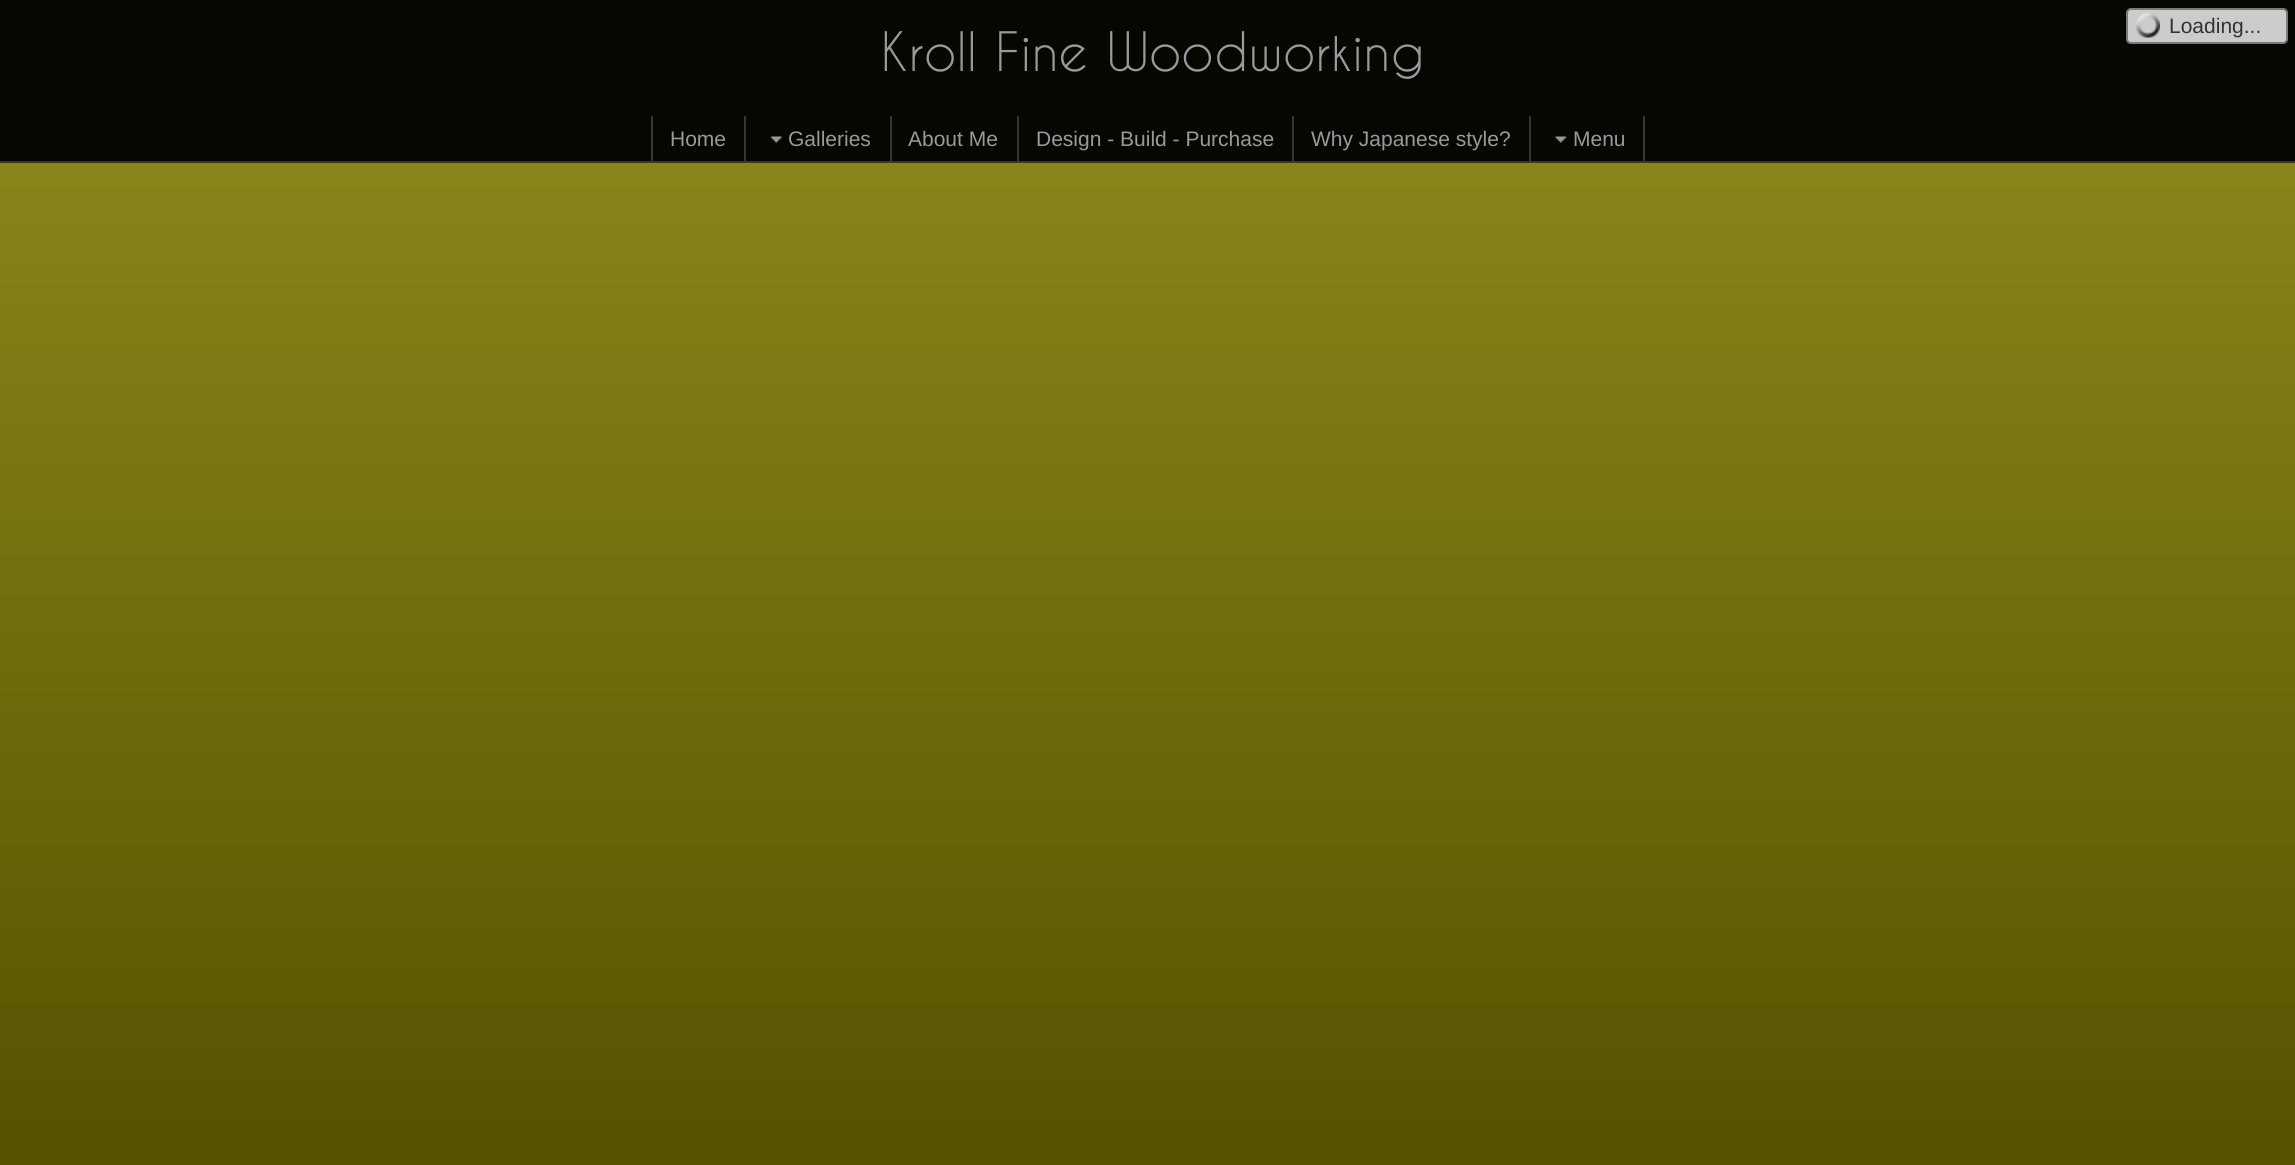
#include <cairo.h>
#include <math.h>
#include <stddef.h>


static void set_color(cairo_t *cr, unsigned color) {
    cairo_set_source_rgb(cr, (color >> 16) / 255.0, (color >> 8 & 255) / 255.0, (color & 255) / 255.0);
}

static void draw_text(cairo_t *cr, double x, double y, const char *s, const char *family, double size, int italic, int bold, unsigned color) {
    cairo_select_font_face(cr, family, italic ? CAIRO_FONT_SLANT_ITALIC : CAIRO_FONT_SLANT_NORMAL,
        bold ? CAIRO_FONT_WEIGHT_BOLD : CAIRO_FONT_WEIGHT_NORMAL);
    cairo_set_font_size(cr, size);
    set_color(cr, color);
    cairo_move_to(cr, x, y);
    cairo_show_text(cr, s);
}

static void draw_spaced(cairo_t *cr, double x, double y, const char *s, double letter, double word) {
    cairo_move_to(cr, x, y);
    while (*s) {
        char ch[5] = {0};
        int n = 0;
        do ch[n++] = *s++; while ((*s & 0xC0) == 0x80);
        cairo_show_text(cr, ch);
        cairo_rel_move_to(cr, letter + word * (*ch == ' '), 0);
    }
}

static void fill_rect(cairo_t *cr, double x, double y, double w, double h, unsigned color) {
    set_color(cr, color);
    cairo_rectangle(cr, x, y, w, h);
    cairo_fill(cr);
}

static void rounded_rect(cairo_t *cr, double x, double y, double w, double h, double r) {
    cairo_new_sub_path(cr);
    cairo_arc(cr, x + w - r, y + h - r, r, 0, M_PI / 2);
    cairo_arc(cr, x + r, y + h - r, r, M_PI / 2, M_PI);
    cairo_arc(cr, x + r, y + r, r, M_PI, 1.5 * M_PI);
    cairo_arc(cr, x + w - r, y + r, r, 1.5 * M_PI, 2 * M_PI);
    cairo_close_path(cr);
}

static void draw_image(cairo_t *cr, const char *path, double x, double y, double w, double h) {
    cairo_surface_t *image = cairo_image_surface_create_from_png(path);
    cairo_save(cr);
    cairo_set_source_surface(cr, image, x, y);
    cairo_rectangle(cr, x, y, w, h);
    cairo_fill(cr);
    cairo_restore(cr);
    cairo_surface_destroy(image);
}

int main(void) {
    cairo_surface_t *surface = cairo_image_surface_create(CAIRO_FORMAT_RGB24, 2295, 1165);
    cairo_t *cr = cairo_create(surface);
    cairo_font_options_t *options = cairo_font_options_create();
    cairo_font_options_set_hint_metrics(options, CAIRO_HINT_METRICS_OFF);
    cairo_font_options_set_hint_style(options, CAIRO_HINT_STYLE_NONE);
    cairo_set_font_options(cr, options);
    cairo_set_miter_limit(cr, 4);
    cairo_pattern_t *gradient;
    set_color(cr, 0xFFFFFF);
    cairo_paint(cr);
    gradient = cairo_pattern_create_linear(1148, 0, 1148, 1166);
    cairo_pattern_add_color_stop_rgba(gradient, 0, 0.569, 0.557, 0.118, 1);
    cairo_pattern_add_color_stop_rgba(gradient, 1, 0.333, 0.322, 0, 1);
    cairo_set_source(cr, gradient);
    cairo_pattern_destroy(gradient);
    cairo_rectangle(cr, 0, 163, 2295, 1002);
    cairo_fill(cr);
    gradient = cairo_pattern_create_linear(1148, 0, 1148, 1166);
    cairo_pattern_add_color_stop_rgba(gradient, 0, 0.027, 0.027, 0.008, 1);
    cairo_pattern_add_color_stop_rgba(gradient, 1, 0.016, 0.016, 0, 1);
    cairo_set_source(cr, gradient);
    cairo_pattern_destroy(gradient);
    cairo_rectangle(cr, 0, 0, 2295, 161);
    cairo_fill(cr);
    set_color(cr, 0xCCCCCC);
    rounded_rect(cr, 2127, 9, 160, 34, 4);
    cairo_fill_preserve(cr);
    set_color(cr, 0x7A7A7A);
    cairo_stroke(cr);
    draw_image(cr, "assets/img1.png", 2136, 13, 24, 25);
    draw_text(cr, 2169, 33, "Loading...", "Liberation Sans", 21, 0, 0, 0x333333);
    fill_rect(cr, 0, 161, 2295, 2, 0x353535);
    cairo_select_font_face(cr, "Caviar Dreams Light", CAIRO_FONT_SLANT_NORMAL, CAIRO_FONT_WEIGHT_NORMAL);
    cairo_set_font_size(cr, 51);
    set_color(cr, 0x999999);
    draw_spaced(cr, 881, 71, "Kroll Fine Woodworking", 0.6, 0);
    fill_rect(cr, 1643, 116, 2, 45, 0x353535);
    fill_rect(cr, 651, 116, 2, 45, 0x353535);
    draw_text(cr, 670, 146, "Home", "Liberation Sans", 21, 0, 0, 0x999999);
    fill_rect(cr, 744, 116, 2, 45, 0x353535);
    draw_image(cr, "assets/img2.png", 770, 136, 12, 7);
    draw_text(cr, 788, 146, "Galleries", "Liberation Sans", 21, 0, 0, 0x999999);
    fill_rect(cr, 890, 116, 2, 45, 0x353535);
    draw_text(cr, 908, 146, "About Me", "Liberation Sans", 21, 0, 0, 0x999999);
    fill_rect(cr, 1017, 116, 2, 45, 0x353535);
    draw_text(cr, 1036, 146, "Design - Build - Purchase", "Liberation Sans", 21, 0, 0, 0x999999);
    fill_rect(cr, 1292, 116, 2, 45, 0x353535);
    draw_text(cr, 1311, 146, "Why Japanese style?", "Liberation Sans", 21, 0, 0, 0x999999);
    fill_rect(cr, 1529, 116, 2, 45, 0x353535);
    draw_image(cr, "assets/img3.png", 1555, 136, 12, 7);
    draw_text(cr, 1573, 146, "Menu", "Liberation Sans", 21, 0, 0, 0x999999);
    cairo_surface_write_to_png(surface, "output.png");
    cairo_font_options_destroy(options);
    cairo_destroy(cr);
    cairo_surface_destroy(surface);
    return 0;
}
